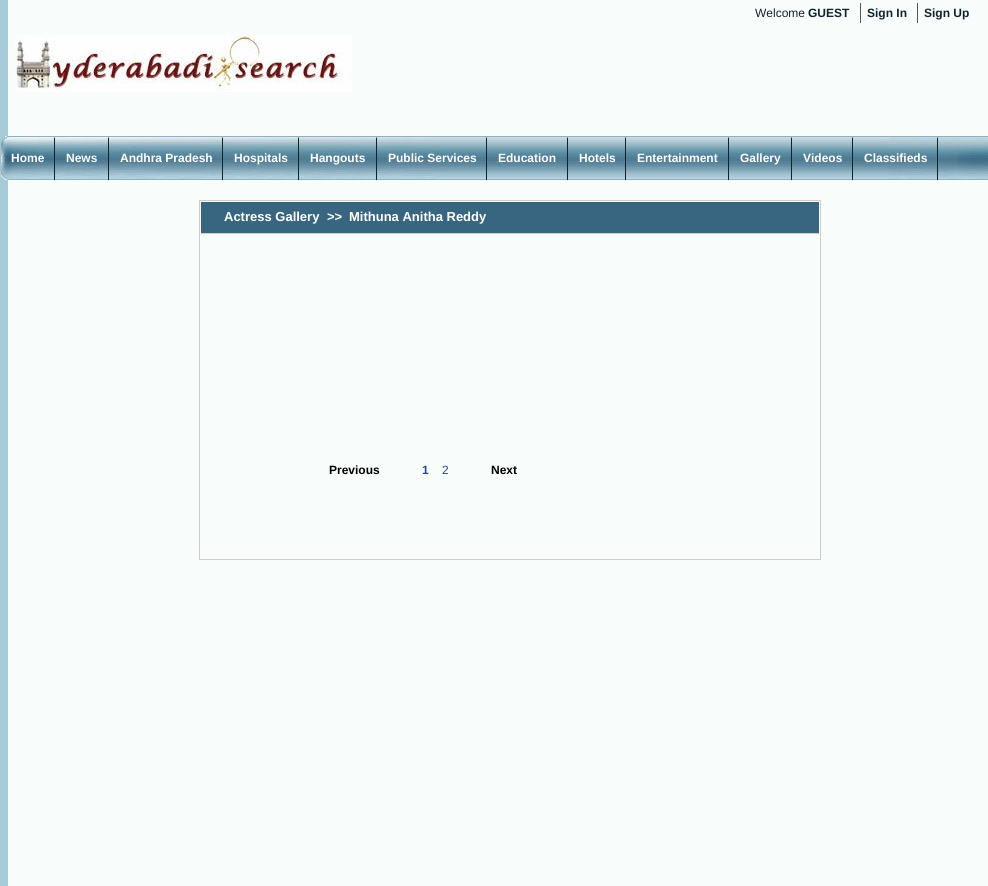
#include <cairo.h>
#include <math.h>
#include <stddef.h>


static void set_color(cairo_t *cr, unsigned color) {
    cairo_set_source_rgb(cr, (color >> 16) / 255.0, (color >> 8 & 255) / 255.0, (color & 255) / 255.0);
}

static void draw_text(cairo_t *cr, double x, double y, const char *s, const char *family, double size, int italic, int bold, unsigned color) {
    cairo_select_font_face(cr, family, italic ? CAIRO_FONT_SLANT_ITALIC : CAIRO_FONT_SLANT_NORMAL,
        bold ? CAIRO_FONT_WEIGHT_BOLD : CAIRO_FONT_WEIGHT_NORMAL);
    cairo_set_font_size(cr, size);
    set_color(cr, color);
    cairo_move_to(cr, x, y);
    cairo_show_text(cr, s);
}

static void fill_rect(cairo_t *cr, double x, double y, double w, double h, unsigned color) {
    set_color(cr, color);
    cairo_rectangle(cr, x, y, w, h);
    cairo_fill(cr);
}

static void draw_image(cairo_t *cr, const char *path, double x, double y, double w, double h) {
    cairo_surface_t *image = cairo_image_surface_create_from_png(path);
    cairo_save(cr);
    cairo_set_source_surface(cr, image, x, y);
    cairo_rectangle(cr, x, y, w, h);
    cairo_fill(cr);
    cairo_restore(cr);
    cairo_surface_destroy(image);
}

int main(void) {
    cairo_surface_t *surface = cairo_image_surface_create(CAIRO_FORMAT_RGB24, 988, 886);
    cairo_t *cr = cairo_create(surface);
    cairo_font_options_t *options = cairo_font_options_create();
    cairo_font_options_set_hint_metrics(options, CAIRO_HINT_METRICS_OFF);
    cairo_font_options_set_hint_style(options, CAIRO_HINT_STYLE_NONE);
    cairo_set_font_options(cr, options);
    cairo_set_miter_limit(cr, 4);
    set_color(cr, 0xFFFFFF);
    cairo_paint(cr);
    draw_image(cr, "assets/img1.png", 0, 0, 988, 886);
    draw_text(cr, 755, 17, "Welcome", "Liberation Sans", 12, 0, 0, 0x12232D);
    draw_text(cr, 808, 17, "GUEST", "Liberation Sans", 12, 0, 1, 0x12232D);
    fill_rect(cr, 860, 3, 1, 20, 0x555555);
    draw_text(cr, 867, 17, "Sign In", "Liberation Sans", 12, 0, 1, 0x12232D);
    fill_rect(cr, 917, 3, 1, 20, 0x555555);
    draw_text(cr, 924, 17, "Sign Up", "Liberation Sans", 12, 0, 1, 0x12232D);
    draw_image(cr, "assets/img2.png", 15, 35, 337, 57);
    draw_image(cr, "assets/img3.png", 0, 136, 988, 44);
    draw_image(cr, "assets/img4.png", 54, 137, 1, 43);
    draw_text(cr, 11, 162, "Home", "Liberation Sans", 12, 0, 1, 0xFFFFFF);
    draw_image(cr, "assets/img4.png", 108, 137, 1, 43);
    draw_text(cr, 66, 162, "News", "Liberation Sans", 12, 0, 1, 0xFFFFFF);
    draw_image(cr, "assets/img4.png", 222, 137, 1, 43);
    draw_text(cr, 120, 162, "Andhra Pradesh", "Liberation Sans", 12, 0, 1, 0xFFFFFF);
    draw_image(cr, "assets/img4.png", 298, 137, 1, 43);
    draw_text(cr, 234, 162, "Hospitals", "Liberation Sans", 12, 0, 1, 0xFFFFFF);
    draw_image(cr, "assets/img4.png", 376, 137, 1, 43);
    draw_text(cr, 310, 162, "Hangouts", "Liberation Sans", 12, 0, 1, 0xFFFFFF);
    draw_image(cr, "assets/img4.png", 486, 137, 1, 43);
    draw_text(cr, 388, 162, "Public Services", "Liberation Sans", 12, 0, 1, 0xFFFFFF);
    draw_image(cr, "assets/img4.png", 567, 137, 1, 43);
    draw_text(cr, 498, 162, "Education", "Liberation Sans", 12, 0, 1, 0xFFFFFF);
    draw_image(cr, "assets/img4.png", 625, 137, 1, 43);
    draw_text(cr, 579, 162, "Hotels", "Liberation Sans", 12, 0, 1, 0xFFFFFF);
    draw_image(cr, "assets/img4.png", 728, 137, 1, 43);
    draw_text(cr, 637, 162, "Entertainment", "Liberation Sans", 12, 0, 1, 0xFFFFFF);
    draw_image(cr, "assets/img4.png", 791, 137, 1, 43);
    draw_text(cr, 740, 162, "Gallery", "Liberation Sans", 12, 0, 1, 0xFFFFFF);
    draw_image(cr, "assets/img4.png", 852, 137, 1, 43);
    draw_text(cr, 803, 162, "Videos", "Liberation Sans", 12, 0, 1, 0xFFFFFF);
    draw_image(cr, "assets/img4.png", 937, 137, 1, 43);
    draw_text(cr, 864, 162, "Classifieds", "Liberation Sans", 12, 0, 1, 0xFFFFFF);
    cairo_rectangle(cr, 199.5, 200.5, 621, 359);
    set_color(cr, 0xD3CCCC);
    cairo_set_line_width(cr, 1);
    cairo_stroke(cr);
    fill_rect(cr, 201, 202, 618, 31, 0x386680);
    fill_rect(cr, 201, 233, 618, 1, 0xD3CCCC);
    draw_text(cr, 224, 221, "Actress Gallery", "Liberation Sans", 13, 0, 1, 0xFFFFFF);
    draw_text(cr, 327, 221, ">>", "Liberation Sans", 13, 0, 1, 0xFFFFFF);
    draw_text(cr, 349, 221, "Mithuna Anitha Reddy", "Liberation Sans", 13, 0, 1, 0xFFFFFF);
    draw_text(cr, 329, 474, "Previous", "Liberation Sans", 12, 0, 1, 0x000000);
    draw_text(cr, 422, 474, "1", "Liberation Sans", 12, 0, 1, 0x26488D);
    draw_text(cr, 442, 474, "2", "Liberation Sans", 12, 0, 0, 0x26488D);
    draw_text(cr, 491, 474, "Next", "Liberation Sans", 12, 0, 1, 0x000000);
    cairo_surface_write_to_png(surface, "output.png");
    cairo_font_options_destroy(options);
    cairo_destroy(cr);
    cairo_surface_destroy(surface);
    return 0;
}
